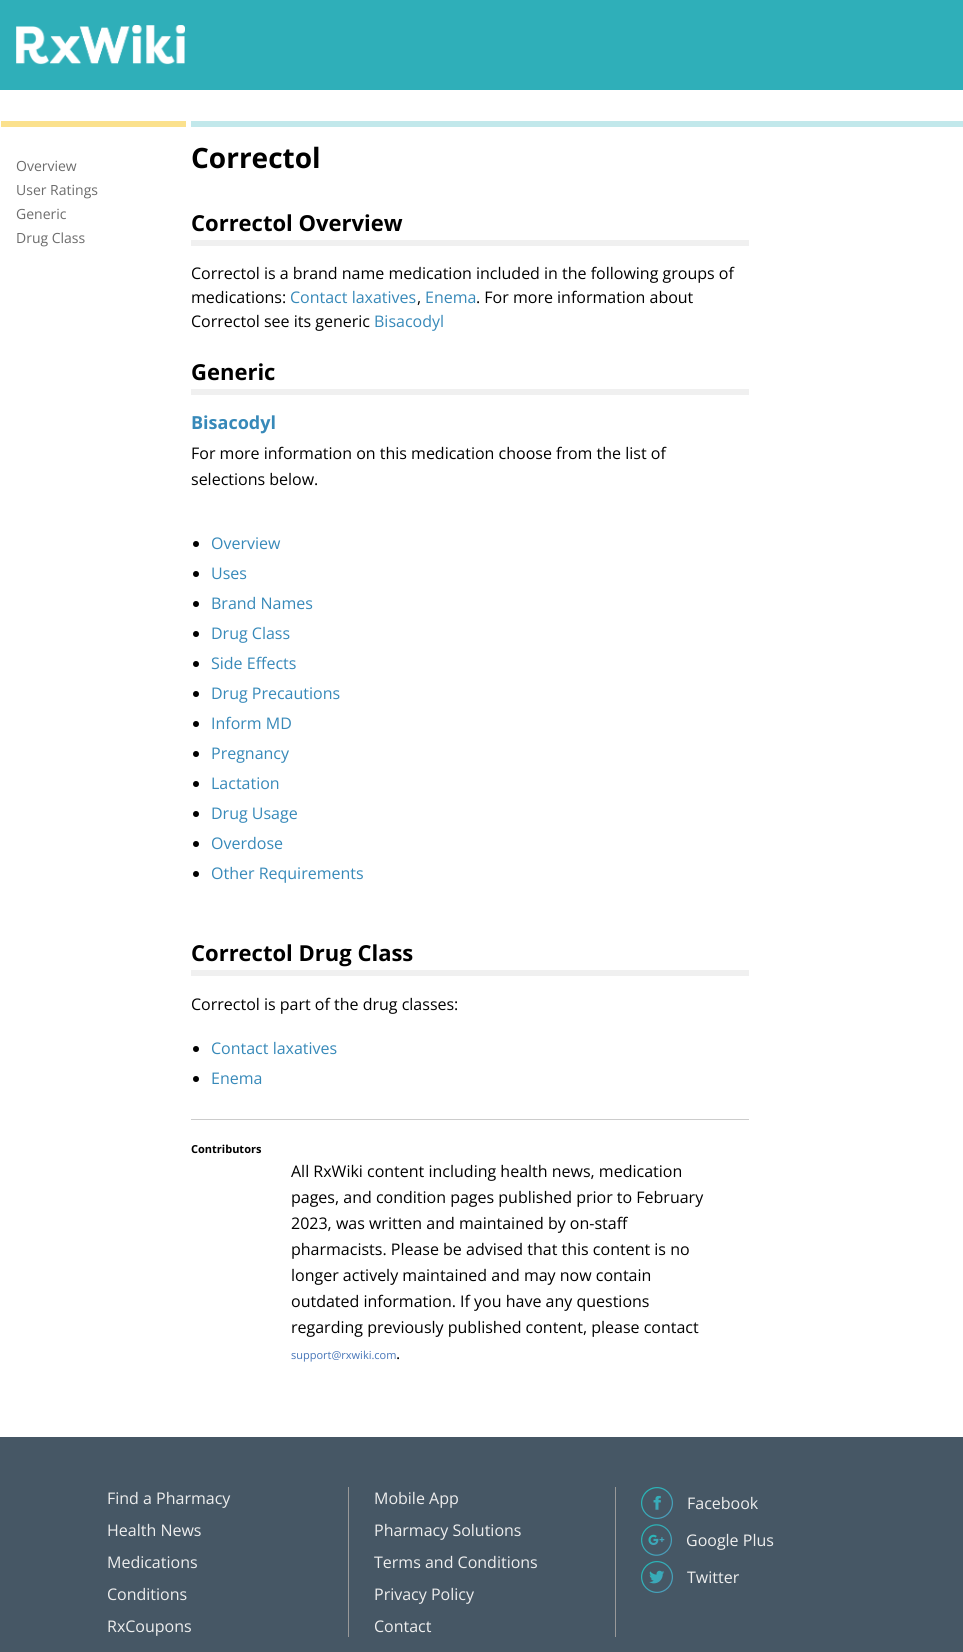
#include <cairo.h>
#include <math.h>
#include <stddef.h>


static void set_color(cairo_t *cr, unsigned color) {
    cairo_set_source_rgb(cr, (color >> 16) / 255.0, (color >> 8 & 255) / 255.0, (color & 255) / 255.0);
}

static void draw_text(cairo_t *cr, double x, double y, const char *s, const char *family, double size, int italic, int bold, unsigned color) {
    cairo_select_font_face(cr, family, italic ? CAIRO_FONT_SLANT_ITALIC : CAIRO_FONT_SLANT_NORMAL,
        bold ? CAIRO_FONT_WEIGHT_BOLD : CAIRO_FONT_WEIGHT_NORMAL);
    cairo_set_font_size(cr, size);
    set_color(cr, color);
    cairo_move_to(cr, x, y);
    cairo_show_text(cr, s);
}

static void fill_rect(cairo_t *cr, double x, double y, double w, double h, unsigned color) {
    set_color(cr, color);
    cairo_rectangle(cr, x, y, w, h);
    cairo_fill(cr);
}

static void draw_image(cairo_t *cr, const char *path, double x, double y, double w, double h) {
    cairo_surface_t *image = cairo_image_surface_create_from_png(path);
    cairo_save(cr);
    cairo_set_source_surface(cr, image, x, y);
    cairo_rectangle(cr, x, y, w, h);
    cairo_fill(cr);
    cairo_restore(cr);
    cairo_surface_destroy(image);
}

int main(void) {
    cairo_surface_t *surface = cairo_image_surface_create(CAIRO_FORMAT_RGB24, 963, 1652);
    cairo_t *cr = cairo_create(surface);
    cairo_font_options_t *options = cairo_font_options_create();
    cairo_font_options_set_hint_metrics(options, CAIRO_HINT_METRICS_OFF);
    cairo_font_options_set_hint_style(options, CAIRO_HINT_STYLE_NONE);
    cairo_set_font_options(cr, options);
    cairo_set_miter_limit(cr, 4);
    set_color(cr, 0xFFFFFF);
    cairo_paint(cr);
    fill_rect(cr, 0, 0, 963, 90, 0x2FAFB9);
    draw_image(cr, "assets/img1.png", 16, 25, 169, 40);
    fill_rect(cr, 1, 121, 185, 6, 0xFBE18D);
    fill_rect(cr, 191, 121, 772, 6, 0xC2E8EB);
    draw_text(cr, 16, 171, "Overview", "Open Sans", 14, 0, 0, 0x6C6C6C);
    draw_text(cr, 16, 195, "User Ratings", "Open Sans", 14, 0, 0, 0x6C6C6C);
    draw_text(cr, 16, 219, "Generic", "Open Sans", 14, 0, 0, 0x6C6C6C);
    draw_text(cr, 16, 243, "Drug Class", "Open Sans", 14, 0, 0, 0x6C6C6C);
    draw_text(cr, 191, 168, "Correctol", "Open Sans", 28, 0, 1, 0x000000);
    fill_rect(cr, 191, 240, 558, 6, 0xF0F0F0);
    draw_text(cr, 191, 231, "Correctol Overview", "Open Sans", 22, 0, 1, 0x000000);
    draw_text(cr, 191, 279, "Correctol is a brand name medication included in the following groups of", "Open Sans", 16, 0, 0, 0x000000);
    draw_text(cr, 191, 303, "medications:", "Open Sans", 16, 0, 0, 0x000000);
    draw_text(cr, 290, 303, "Contact laxatives", "Open Sans", 16, 0, 0, 0x3789B9);
    draw_text(cr, 417, 303, ",", "Open Sans", 16, 0, 0, 0x000000);
    draw_text(cr, 425, 303, "Enema", "Open Sans", 16, 0, 0, 0x3789B9);
    draw_text(cr, 476, 303, ". For more information about", "Open Sans", 16, 0, 0, 0x000000);
    draw_text(cr, 191, 327, "Correctol see its generic", "Open Sans", 16, 0, 0, 0x000000);
    draw_text(cr, 374, 327, "Bisacodyl", "Open Sans", 16, 0, 0, 0x3789B9);
    fill_rect(cr, 191, 389, 558, 6, 0xF0F0F0);
    draw_text(cr, 191, 380, "Generic", "Open Sans", 22, 0, 1, 0x000000);
    draw_text(cr, 191, 429, "Bisacodyl", "Open Sans", 18, 0, 1, 0x3789B9);
    draw_text(cr, 191, 459, "For more information on this medication choose from the list of", "Open Sans", 16, 0, 0, 0x000000);
    draw_text(cr, 191, 485, "selections below.", "Open Sans", 16, 0, 0, 0x000000);
    cairo_new_path(cr);
    cairo_arc(cr, 196, 544, 3, 0, 2 * M_PI);
    cairo_fill(cr);
    draw_text(cr, 211, 549, "Overview", "Open Sans", 16, 0, 0, 0x3789B9);
    set_color(cr, 0x000000);
    cairo_new_path(cr);
    cairo_arc(cr, 196, 574, 3, 0, 2 * M_PI);
    cairo_fill(cr);
    draw_text(cr, 211, 579, "Uses", "Open Sans", 16, 0, 0, 0x3789B9);
    set_color(cr, 0x000000);
    cairo_new_path(cr);
    cairo_arc(cr, 196, 604, 3, 0, 2 * M_PI);
    cairo_fill(cr);
    draw_text(cr, 211, 609, "Brand Names", "Open Sans", 16, 0, 0, 0x3789B9);
    set_color(cr, 0x000000);
    cairo_new_path(cr);
    cairo_arc(cr, 196, 634, 3, 0, 2 * M_PI);
    cairo_fill(cr);
    draw_text(cr, 211, 639, "Drug Class", "Open Sans", 16, 0, 0, 0x3789B9);
    set_color(cr, 0x000000);
    cairo_new_path(cr);
    cairo_arc(cr, 196, 664, 3, 0, 2 * M_PI);
    cairo_fill(cr);
    draw_text(cr, 211, 669, "Side Effects", "Open Sans", 16, 0, 0, 0x3789B9);
    set_color(cr, 0x000000);
    cairo_new_path(cr);
    cairo_arc(cr, 196, 694, 3, 0, 2 * M_PI);
    cairo_fill(cr);
    draw_text(cr, 211, 699, "Drug Precautions", "Open Sans", 16, 0, 0, 0x3789B9);
    set_color(cr, 0x000000);
    cairo_new_path(cr);
    cairo_arc(cr, 196, 724, 3, 0, 2 * M_PI);
    cairo_fill(cr);
    draw_text(cr, 211, 729, "Inform MD", "Open Sans", 16, 0, 0, 0x3789B9);
    set_color(cr, 0x000000);
    cairo_new_path(cr);
    cairo_arc(cr, 196, 754, 3, 0, 2 * M_PI);
    cairo_fill(cr);
    draw_text(cr, 211, 759, "Pregnancy", "Open Sans", 16, 0, 0, 0x3789B9);
    set_color(cr, 0x000000);
    cairo_new_path(cr);
    cairo_arc(cr, 196, 784, 3, 0, 2 * M_PI);
    cairo_fill(cr);
    draw_text(cr, 211, 789, "Lactation", "Open Sans", 16, 0, 0, 0x3789B9);
    set_color(cr, 0x000000);
    cairo_new_path(cr);
    cairo_arc(cr, 196, 814, 3, 0, 2 * M_PI);
    cairo_fill(cr);
    draw_text(cr, 211, 819, "Drug Usage", "Open Sans", 16, 0, 0, 0x3789B9);
    set_color(cr, 0x000000);
    cairo_new_path(cr);
    cairo_arc(cr, 196, 844, 3, 0, 2 * M_PI);
    cairo_fill(cr);
    draw_text(cr, 211, 849, "Overdose", "Open Sans", 16, 0, 0, 0x3789B9);
    set_color(cr, 0x000000);
    cairo_new_path(cr);
    cairo_arc(cr, 196, 874, 3, 0, 2 * M_PI);
    cairo_fill(cr);
    draw_text(cr, 211, 879, "Other Requirements", "Open Sans", 16, 0, 0, 0x3789B9);
    fill_rect(cr, 191, 970, 558, 6, 0xF0F0F0);
    draw_text(cr, 191, 961, "Correctol Drug Class", "Open Sans", 22, 0, 1, 0x000000);
    draw_text(cr, 191, 1010, "Correctol is part of the drug classes:", "Open Sans", 16, 0, 0, 0x000000);
    cairo_new_path(cr);
    cairo_arc(cr, 196, 1049, 3, 0, 2 * M_PI);
    cairo_fill(cr);
    draw_text(cr, 211, 1054, "Contact laxatives", "Open Sans", 16, 0, 0, 0x3789B9);
    set_color(cr, 0x000000);
    cairo_new_path(cr);
    cairo_arc(cr, 196, 1079, 3, 0, 2 * M_PI);
    cairo_fill(cr);
    draw_text(cr, 211, 1084, "Enema", "Open Sans", 16, 0, 0, 0x3789B9);
    fill_rect(cr, 191, 1119, 558, 1, 0xCCCCCC);
    draw_text(cr, 191, 1153, "Contributors", "Open Sans", 11, 0, 1, 0x000000);
    draw_text(cr, 291, 1177, "All RxWiki content including health news, medication", "Open Sans", 16, 0, 0, 0x000000);
    draw_text(cr, 291, 1203, "pages, and condition pages published prior to February", "Open Sans", 16, 0, 0, 0x000000);
    draw_text(cr, 291, 1229, "2023, was written and maintained by on-staff", "Open Sans", 16, 0, 0, 0x000000);
    draw_text(cr, 291, 1255, "pharmacists. Please be advised that this content is no", "Open Sans", 16, 0, 0, 0x000000);
    draw_text(cr, 291, 1281, "longer actively maintained and may now contain", "Open Sans", 16, 0, 0, 0x000000);
    draw_text(cr, 291, 1307, "outdated information. If you have any questions", "Open Sans", 16, 0, 0, 0x000000);
    draw_text(cr, 291, 1333, "regarding previously published content, please contact", "Open Sans", 16, 0, 0, 0x000000);
    draw_text(cr, 291, 1359, "support@rxwiki.com", "Open Sans", 11, 0, 0, 0x4675B8);
    draw_text(cr, 396, 1359, ".", "Open Sans", 16, 0, 0, 0x000000);
    fill_rect(cr, 0, 1437, 963, 215, 0x465765);
    draw_text(cr, 107, 1504, "Find a Pharmacy", "Open Sans", 16, 0, 0, 0xEEEEEE);
    draw_text(cr, 107, 1536, "Health News", "Open Sans", 16, 0, 0, 0xEEEEEE);
    draw_text(cr, 107, 1568, "Medications", "Open Sans", 16, 0, 0, 0xEEEEEE);
    draw_text(cr, 107, 1600, "Conditions", "Open Sans", 16, 0, 0, 0xEEEEEE);
    draw_text(cr, 107, 1632, "RxCoupons", "Open Sans", 16, 0, 0, 0xEEEEEE);
    fill_rect(cr, 348, 1487, 1, 150, 0x999999);
    draw_text(cr, 374, 1504, "Mobile App", "Open Sans", 16, 0, 0, 0xEEEEEE);
    draw_text(cr, 374, 1536, "Pharmacy Solutions", "Open Sans", 16, 0, 0, 0xEEEEEE);
    draw_text(cr, 374, 1568, "Terms and Conditions", "Open Sans", 16, 0, 0, 0xEEEEEE);
    draw_text(cr, 374, 1600, "Privacy Policy", "Open Sans", 16, 0, 0, 0xEEEEEE);
    draw_text(cr, 374, 1632, "Contact", "Open Sans", 16, 0, 0, 0xEEEEEE);
    fill_rect(cr, 615, 1487, 1, 150, 0x999999);
    draw_image(cr, "assets/img2.png", 641, 1487, 32, 32);
    draw_text(cr, 687, 1509, "Facebook", "Open Sans", 16, 0, 0, 0xEEEEEE);
    draw_image(cr, "assets/img3.png", 641, 1524, 31, 32);
    draw_text(cr, 686, 1546, "Google Plus", "Open Sans", 16, 0, 0, 0xEEEEEE);
    draw_image(cr, "assets/img4.png", 641, 1561, 32, 32);
    draw_text(cr, 687, 1583, "Twitter", "Open Sans", 16, 0, 0, 0xEEEEEE);
    cairo_surface_write_to_png(surface, "output.png");
    cairo_font_options_destroy(options);
    cairo_destroy(cr);
    cairo_surface_destroy(surface);
    return 0;
}
